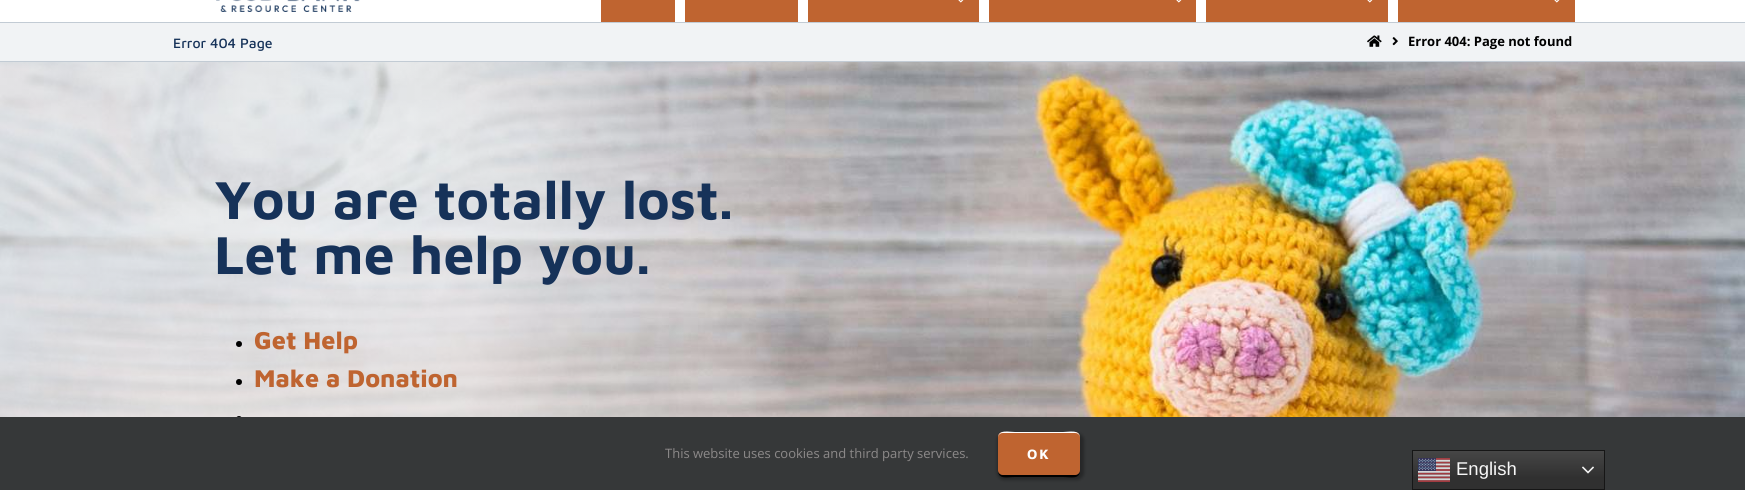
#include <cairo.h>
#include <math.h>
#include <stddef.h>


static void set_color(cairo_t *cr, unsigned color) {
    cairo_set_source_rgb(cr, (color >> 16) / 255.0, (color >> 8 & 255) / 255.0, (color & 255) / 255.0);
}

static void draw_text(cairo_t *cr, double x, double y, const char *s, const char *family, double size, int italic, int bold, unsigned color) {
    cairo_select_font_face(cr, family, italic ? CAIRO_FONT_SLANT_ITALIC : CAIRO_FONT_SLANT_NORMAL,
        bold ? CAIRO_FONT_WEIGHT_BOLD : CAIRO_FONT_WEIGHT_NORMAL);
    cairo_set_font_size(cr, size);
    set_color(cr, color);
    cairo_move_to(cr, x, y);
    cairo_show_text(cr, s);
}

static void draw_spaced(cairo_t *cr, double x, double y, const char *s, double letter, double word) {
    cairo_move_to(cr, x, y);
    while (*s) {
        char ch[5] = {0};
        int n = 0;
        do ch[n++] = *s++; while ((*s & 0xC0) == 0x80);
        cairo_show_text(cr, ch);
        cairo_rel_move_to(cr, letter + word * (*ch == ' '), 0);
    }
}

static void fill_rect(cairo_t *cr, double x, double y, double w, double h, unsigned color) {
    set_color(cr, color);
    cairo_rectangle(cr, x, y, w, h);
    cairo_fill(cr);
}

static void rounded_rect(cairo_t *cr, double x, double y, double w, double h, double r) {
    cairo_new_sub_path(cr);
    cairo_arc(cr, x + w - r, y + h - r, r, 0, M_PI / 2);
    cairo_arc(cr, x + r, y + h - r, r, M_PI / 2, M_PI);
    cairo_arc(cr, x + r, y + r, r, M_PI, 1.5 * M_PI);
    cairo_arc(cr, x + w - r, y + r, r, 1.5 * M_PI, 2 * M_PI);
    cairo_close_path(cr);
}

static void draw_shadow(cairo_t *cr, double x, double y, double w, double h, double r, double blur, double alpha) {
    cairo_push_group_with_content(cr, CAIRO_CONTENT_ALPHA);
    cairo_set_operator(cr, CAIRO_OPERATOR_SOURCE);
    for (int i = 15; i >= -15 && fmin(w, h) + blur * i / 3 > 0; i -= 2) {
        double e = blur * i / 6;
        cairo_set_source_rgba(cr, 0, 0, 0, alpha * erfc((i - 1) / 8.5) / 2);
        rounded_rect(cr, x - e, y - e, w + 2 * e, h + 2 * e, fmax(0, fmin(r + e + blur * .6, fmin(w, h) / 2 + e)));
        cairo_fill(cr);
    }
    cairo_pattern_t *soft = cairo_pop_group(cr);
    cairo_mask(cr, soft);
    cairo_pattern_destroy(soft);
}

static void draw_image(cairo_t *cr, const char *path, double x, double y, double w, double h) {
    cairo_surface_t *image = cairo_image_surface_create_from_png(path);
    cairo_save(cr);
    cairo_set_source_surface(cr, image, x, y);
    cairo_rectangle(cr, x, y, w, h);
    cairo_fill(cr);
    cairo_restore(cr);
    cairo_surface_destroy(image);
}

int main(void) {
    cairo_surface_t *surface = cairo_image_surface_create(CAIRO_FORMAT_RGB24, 1745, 490);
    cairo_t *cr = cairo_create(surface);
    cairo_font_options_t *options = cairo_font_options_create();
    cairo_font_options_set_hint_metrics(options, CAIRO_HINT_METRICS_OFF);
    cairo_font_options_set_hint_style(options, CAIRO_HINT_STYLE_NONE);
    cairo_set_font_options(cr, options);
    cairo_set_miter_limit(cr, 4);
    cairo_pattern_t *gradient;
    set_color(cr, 0xFFFFFF);
    cairo_paint(cr);
    draw_image(cr, "assets/img1.png", 216, 0, 144, 12);
    fill_rect(cr, 601, 0, 74, 22, 0xBF6430);
    fill_rect(cr, 685, 0, 113, 22, 0xBF6430);
    fill_rect(cr, 808, 0, 171, 22, 0xBF6430);
    draw_image(cr, "assets/img2.png", 958, 0, 6, 3);
    fill_rect(cr, 989, 0, 207, 22, 0xBF6430);
    draw_image(cr, "assets/img2.png", 1176, 0, 6, 3);
    fill_rect(cr, 1206, 0, 182, 22, 0xBF6430);
    draw_image(cr, "assets/img2.png", 1367, 0, 6, 3);
    fill_rect(cr, 1398, 0, 177, 22, 0xBF6430);
    draw_image(cr, "assets/img2.png", 1554, 0, 6, 3);
    fill_rect(cr, 0, 23, 1745, 38, 0xF1F3F5);
    fill_rect(cr, 0, 22, 1745, 1, 0xC2CBD4);
    fill_rect(cr, 0, 61, 1745, 1, 0xC2CBD4);
    draw_text(cr, 173, 48, "Error 404 Page", "Maven Pro Medium", 14, 0, 0, 0x163259);
    draw_image(cr, "assets/img3.png", 1367, 35, 15, 12);
    draw_image(cr, "assets/img4.png", 1392, 37, 6, 9);
    draw_text(cr, 1408, 46, "Error 404: Page not found", "Open Sans", 13, 0, 1, 0x000000);
    draw_image(cr, "assets/img5.png", 0, 62, 1745, 355);
    draw_text(cr, 214, 219, "You are totally lost.", "Maven Pro", 55, 0, 1, 0x163259);
    draw_text(cr, 214, 274, "Let me help you.", "Maven Pro", 55, 0, 1, 0x163259);
    set_color(cr, 0x000000);
    cairo_new_path(cr);
    cairo_arc(cr, 239, 344, 3, 0, 2 * M_PI);
    cairo_fill(cr);
    draw_text(cr, 254, 349, "Get Help", "Maven Pro ExtraBold", 25, 0, 0, 0xBF6430);
    set_color(cr, 0x000000);
    cairo_new_path(cr);
    cairo_arc(cr, 239, 382, 3, 0, 2 * M_PI);
    cairo_fill(cr);
    draw_text(cr, 254, 387, "Make a Donation", "Maven Pro ExtraBold", 25, 0, 0, 0xBF6430);
    set_color(cr, 0x000000);
    cairo_new_path(cr);
    cairo_arc(cr, 239, 419, 3, 0, 2 * M_PI);
    cairo_fill(cr);
    fill_rect(cr, 0, 417, 1745, 73, 0x363839);
    draw_text(cr, 665, 458, "This website uses cookies and third party services.", "Open Sans", 13, 0, 0, 0x8C8989);
    set_color(cr, 0x000000);
    draw_shadow(cr, 997, 433, 87, 47, 7, 1.5, 0.3);
    set_color(cr, 0x000000);
    cairo_new_path(cr);
    cairo_move_to(cr, 998, 470);
    cairo_curve_to(cr, 998, 480, 1007, 477, 1015, 477);
    cairo_line_to(cr, 1063, 477);
    cairo_curve_to(cr, 1071, 477, 1080, 480, 1080, 470);
    cairo_curve_to(cr, 1080, 473, 1078, 475, 1075, 475);
    cairo_line_to(cr, 1003, 475);
    cairo_curve_to(cr, 1000, 475, 998, 473, 998, 470);
    cairo_close_path(cr);
    cairo_fill(cr);
    set_color(cr, 0xBF6430);
    rounded_rect(cr, 998, 432, 82, 43, 5);
    cairo_fill(cr);
    set_color(cr, 0xFFFFFF);
    cairo_new_path(cr);
    cairo_move_to(cr, 1003, 433);
    cairo_line_to(cr, 1075, 433);
    cairo_curve_to(cr, 1078, 433, 1080, 435, 1080, 438);
    cairo_curve_to(cr, 1080, 429, 1069, 432, 1063, 432);
    cairo_line_to(cr, 1015, 432);
    cairo_curve_to(cr, 1009, 432, 998, 429, 998, 438);
    cairo_curve_to(cr, 998, 435, 1000, 433, 1003, 433);
    cairo_close_path(cr);
    cairo_fill(cr);
    cairo_select_font_face(cr, "Maven Pro", CAIRO_FONT_SLANT_NORMAL, CAIRO_FONT_WEIGHT_BOLD);
    cairo_set_font_size(cr, 14);
    draw_spaced(cr, 1027, 459, "OK", 2, 0);
    gradient = cairo_pattern_create_linear(1509, 450, 1509, 490);
    cairo_pattern_add_color_stop_rgba(gradient, 0, 0.278, 0.278, 0.278, 1);
    cairo_pattern_add_color_stop_rgba(gradient, 0.7, 0.188, 0.188, 0.188, 1);
    cairo_set_source(cr, gradient);
    cairo_pattern_destroy(gradient);
    cairo_rectangle(cr, 1413, 451, 191, 38);
    cairo_fill(cr);
    cairo_rectangle(cr, 1412.5, 450.5, 192, 39);
    set_color(cr, 0x161616);
    cairo_set_line_width(cr, 1);
    cairo_stroke(cr);
    draw_image(cr, "assets/img6.png", 1418, 458, 32, 24);
    draw_text(cr, 1456, 475, "English", "Liberation Sans", 18.5, 0, 0, 0xF7F7F7);
    draw_image(cr, "assets/img7.png", 1582, 466, 12, 8);
    cairo_surface_write_to_png(surface, "output.png");
    cairo_font_options_destroy(options);
    cairo_destroy(cr);
    cairo_surface_destroy(surface);
    return 0;
}
